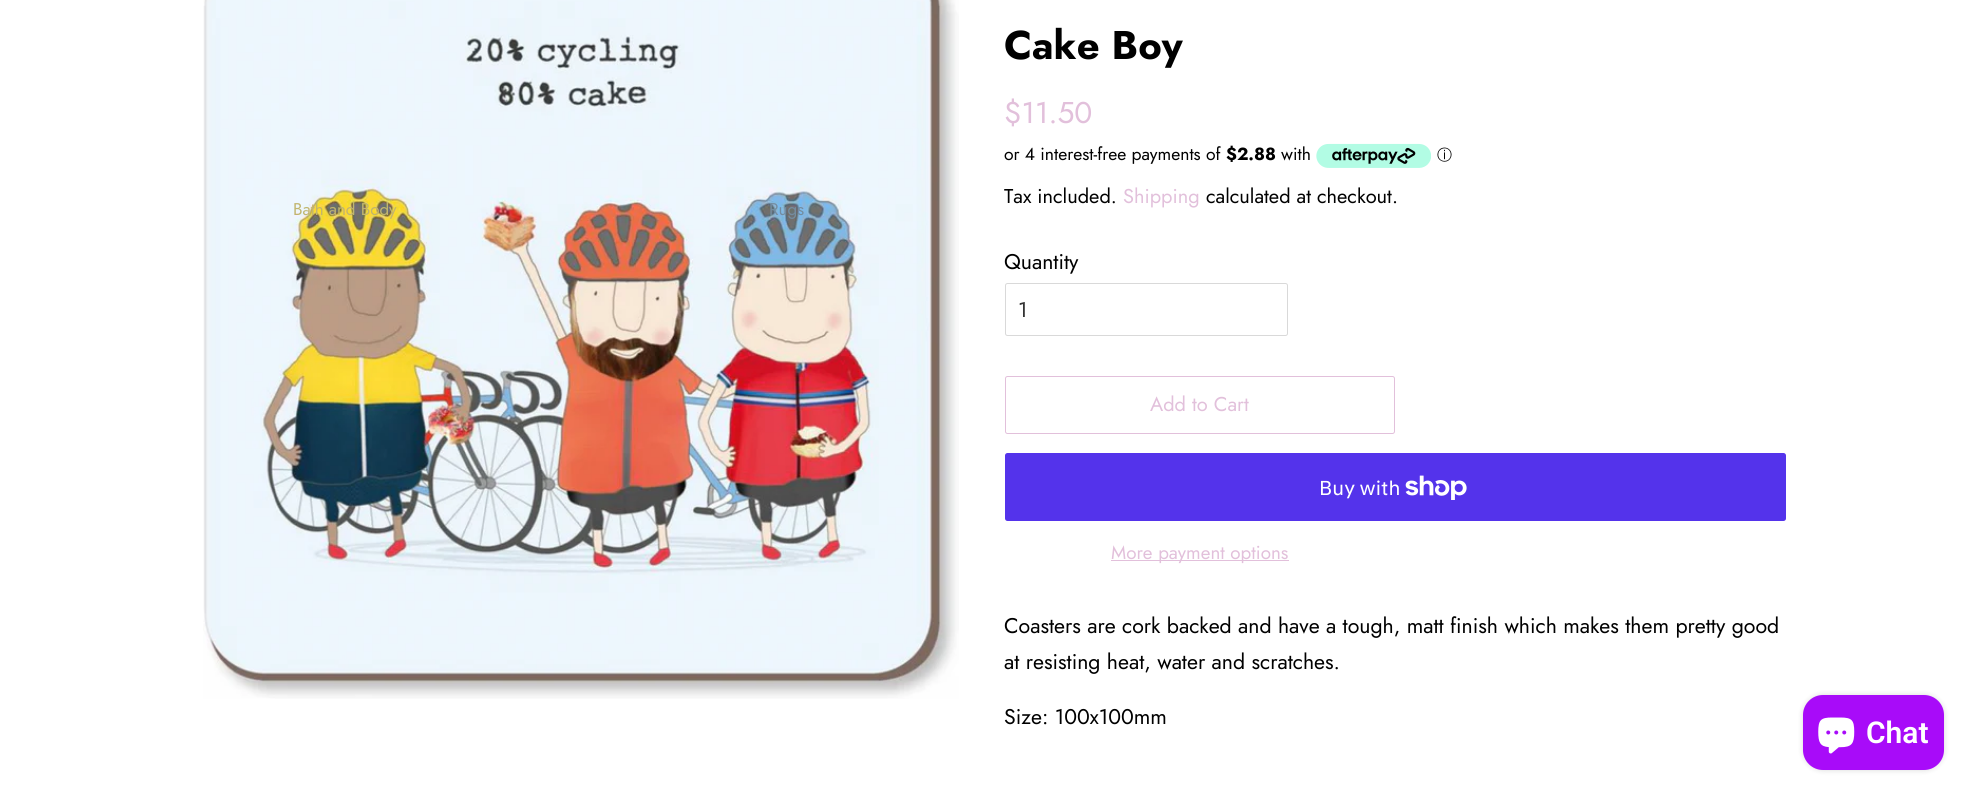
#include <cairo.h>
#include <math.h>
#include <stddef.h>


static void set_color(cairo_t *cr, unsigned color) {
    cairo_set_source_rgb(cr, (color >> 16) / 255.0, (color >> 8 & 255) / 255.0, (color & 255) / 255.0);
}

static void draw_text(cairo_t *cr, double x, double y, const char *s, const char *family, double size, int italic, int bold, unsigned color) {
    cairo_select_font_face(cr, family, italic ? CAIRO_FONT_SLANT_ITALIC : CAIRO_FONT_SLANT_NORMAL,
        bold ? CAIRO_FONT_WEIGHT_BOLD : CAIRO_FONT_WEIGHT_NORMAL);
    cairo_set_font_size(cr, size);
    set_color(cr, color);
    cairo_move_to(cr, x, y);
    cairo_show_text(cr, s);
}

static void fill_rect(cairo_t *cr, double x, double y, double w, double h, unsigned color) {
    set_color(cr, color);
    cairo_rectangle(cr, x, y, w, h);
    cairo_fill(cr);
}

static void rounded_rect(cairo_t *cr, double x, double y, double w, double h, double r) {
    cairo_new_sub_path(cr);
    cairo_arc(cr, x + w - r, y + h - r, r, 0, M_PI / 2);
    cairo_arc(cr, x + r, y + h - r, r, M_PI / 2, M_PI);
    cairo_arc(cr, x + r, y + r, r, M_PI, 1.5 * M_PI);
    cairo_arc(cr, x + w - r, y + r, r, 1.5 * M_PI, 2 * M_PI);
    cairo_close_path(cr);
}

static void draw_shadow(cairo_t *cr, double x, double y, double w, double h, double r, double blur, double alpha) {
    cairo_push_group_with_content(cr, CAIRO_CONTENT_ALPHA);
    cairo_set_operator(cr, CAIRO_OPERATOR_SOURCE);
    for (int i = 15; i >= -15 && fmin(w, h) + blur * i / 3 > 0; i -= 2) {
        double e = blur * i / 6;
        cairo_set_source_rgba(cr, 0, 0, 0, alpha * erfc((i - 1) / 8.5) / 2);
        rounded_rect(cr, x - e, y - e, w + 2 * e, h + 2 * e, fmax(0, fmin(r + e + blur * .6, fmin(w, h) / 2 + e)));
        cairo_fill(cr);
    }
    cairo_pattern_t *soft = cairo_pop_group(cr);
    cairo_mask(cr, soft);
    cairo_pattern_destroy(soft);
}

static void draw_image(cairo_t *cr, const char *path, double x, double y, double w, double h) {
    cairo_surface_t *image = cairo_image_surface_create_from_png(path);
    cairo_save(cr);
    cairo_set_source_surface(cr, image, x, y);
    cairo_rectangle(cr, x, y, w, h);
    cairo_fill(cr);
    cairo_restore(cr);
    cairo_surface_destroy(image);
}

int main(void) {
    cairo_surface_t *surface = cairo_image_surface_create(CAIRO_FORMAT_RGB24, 1971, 796);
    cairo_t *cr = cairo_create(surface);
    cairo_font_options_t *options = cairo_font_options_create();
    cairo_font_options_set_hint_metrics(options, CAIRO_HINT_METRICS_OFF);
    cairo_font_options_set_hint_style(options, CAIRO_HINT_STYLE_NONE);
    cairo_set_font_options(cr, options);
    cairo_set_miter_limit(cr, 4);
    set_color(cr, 0xFFFFFF);
    cairo_paint(cr);
    draw_image(cr, "assets/img1.png", 203, 0, 756, 699);
    draw_text(cr, 293, 215, "Bath and Body", "Jost", 17, 0, 0, 0xC1B56E);
    draw_text(cr, 769, 215, "Rugs", "Jost", 17, 0, 0, 0x748DA0);
    draw_text(cr, 1004, 59, "Cake Boy", "Jost", 40, 0, 1, 0x000000);
    draw_text(cr, 1004, 123, "$11.50", "Jost", 30, 0, 0, 0xE2C0DB);
    draw_text(cr, 1004, 160, "or 4 interest-free payments of", "Jost", 17.5, 0, 0, 0x000000);
    draw_text(cr, 1226, 160, "$2.88", "Jost", 17.5, 0, 1, 0x000000);
    draw_text(cr, 1281, 160, "with", "Jost", 17.5, 0, 0, 0x000000);
    draw_image(cr, "assets/img2.png", 1316, 143, 115, 25);
    draw_text(cr, 1437, 160, "ⓘ", "WenQuanYi Zen Hei Medium", 15, 0, 0, 0x000000);
    draw_text(cr, 1004, 203, "Tax included.", "Jost", 20, 0, 0, 0x000000);
    draw_text(cr, 1123, 203, "Shipping", "Jost", 20, 0, 0, 0xE2C0DB);
    draw_text(cr, 1206, 203, "calculated at checkout.", "Jost", 20, 0, 0, 0x000000);
    draw_text(cr, 1004, 269, "Quantity", "Jost", 21.25, 0, 0, 0x000000);
    rounded_rect(cr, 1005.5, 283.5, 282, 52, 2);
    set_color(cr, 0xD9D9D9);
    cairo_set_line_width(cr, 1);
    cairo_stroke(cr);
    draw_text(cr, 1018, 317, "1", "Jost", 21.25, 0, 0, 0x333333);
    rounded_rect(cr, 1005.5, 376.5, 389, 57, 2);
    set_color(cr, 0xE2C0DB);
    cairo_stroke(cr);
    draw_text(cr, 1150, 411, "Add to Cart", "Jost", 20, 0, 0, 0xE2C0DB);
    set_color(cr, 0x5433EB);
    rounded_rect(cr, 1005, 453, 781, 68, 2.5);
    cairo_fill(cr);
    draw_text(cr, 1319, 495, "Buy with", "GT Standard", 20, 0, 0, 0xFFFFFF);
    draw_image(cr, "assets/img3.png", 1405, 475, 62, 25);
    fill_rect(cr, 1111, 560, 178, 1, 0xE2C0DB);
    draw_text(cr, 1111, 559, "More payment options", "Jost", 18.75, 0, 0, 0xE2C0DB);
    draw_text(cr, 1004, 633, "Coasters are cork backed and have a tough, matt finish which makes them pretty good", "Jost", 21.25, 0, 0, 0x000000);
    draw_text(cr, 1004, 669, "at resisting heat, water and scratches.", "Jost", 21.25, 0, 0, 0x000000);
    draw_text(cr, 1004, 724, "Size: 100x100mm", "Jost", 21.25, 0, 0, 0x000000);
    set_color(cr, 0x000000);
    draw_shadow(cr, 1803, 695, 141, 75, 20, 3, 0.15);
    set_color(cr, 0xA80BF9);
    rounded_rect(cr, 1803, 695, 141, 75, 20);
    cairo_fill(cr);
    draw_image(cr, "assets/img4.png", 1818, 717, 37, 37);
    draw_text(cr, 1866, 743, "Chat", "Roboto SemiBold", 30, 0, 0, 0xFFFFFF);
    cairo_surface_write_to_png(surface, "output.png");
    cairo_font_options_destroy(options);
    cairo_destroy(cr);
    cairo_surface_destroy(surface);
    return 0;
}
